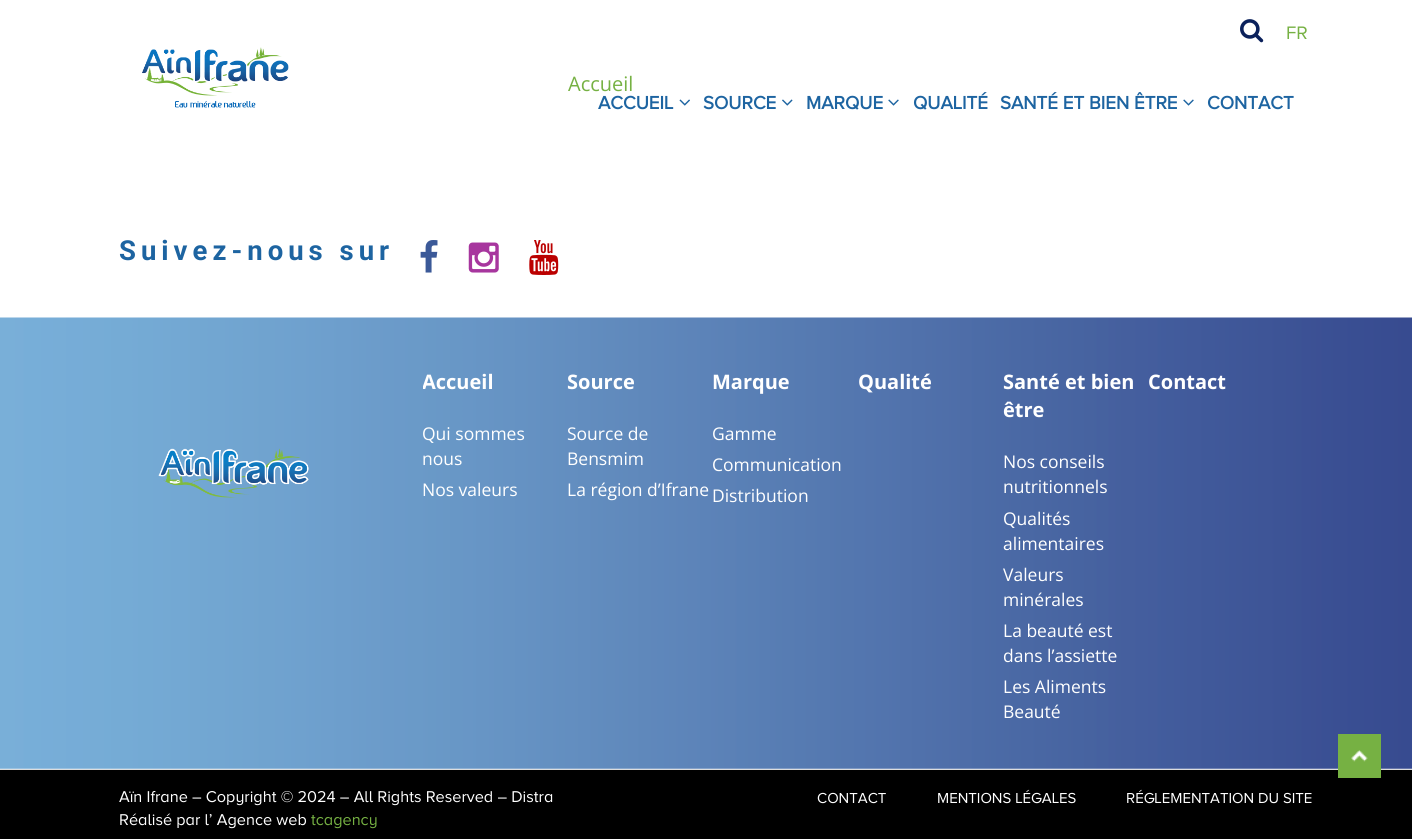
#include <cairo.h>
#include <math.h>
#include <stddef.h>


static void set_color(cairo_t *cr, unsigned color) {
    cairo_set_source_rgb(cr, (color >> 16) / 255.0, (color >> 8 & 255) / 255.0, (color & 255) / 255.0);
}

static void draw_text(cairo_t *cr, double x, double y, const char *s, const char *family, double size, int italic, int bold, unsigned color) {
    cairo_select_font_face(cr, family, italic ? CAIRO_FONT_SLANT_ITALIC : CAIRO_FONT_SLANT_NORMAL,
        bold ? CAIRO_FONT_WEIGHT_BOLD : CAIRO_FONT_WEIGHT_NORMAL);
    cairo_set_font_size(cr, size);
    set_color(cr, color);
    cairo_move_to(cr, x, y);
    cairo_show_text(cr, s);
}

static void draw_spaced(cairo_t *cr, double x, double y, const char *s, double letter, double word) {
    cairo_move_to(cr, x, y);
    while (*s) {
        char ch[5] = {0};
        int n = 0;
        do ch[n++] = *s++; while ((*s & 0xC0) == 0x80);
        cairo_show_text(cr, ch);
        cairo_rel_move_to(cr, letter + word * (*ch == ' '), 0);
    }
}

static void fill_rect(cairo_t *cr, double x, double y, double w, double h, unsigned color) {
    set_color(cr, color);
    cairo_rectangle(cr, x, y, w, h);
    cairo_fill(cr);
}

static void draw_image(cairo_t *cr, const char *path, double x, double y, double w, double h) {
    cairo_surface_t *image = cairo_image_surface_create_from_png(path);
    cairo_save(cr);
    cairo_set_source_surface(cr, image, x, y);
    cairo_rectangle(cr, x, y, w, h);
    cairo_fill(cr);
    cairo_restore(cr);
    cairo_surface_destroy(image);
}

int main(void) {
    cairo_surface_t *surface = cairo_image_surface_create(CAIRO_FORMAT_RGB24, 1412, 840);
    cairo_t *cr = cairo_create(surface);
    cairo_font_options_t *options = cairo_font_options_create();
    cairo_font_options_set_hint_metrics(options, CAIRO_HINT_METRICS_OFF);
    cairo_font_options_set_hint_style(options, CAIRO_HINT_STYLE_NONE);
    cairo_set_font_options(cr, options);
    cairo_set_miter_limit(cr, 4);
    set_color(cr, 0xFFFFFF);
    cairo_paint(cr);
    draw_image(cr, "assets/img1.png", 1240, 19, 24, 24);
    draw_text(cr, 1286, 39, "FR", "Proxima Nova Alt", 18.75, 0, 0, 0x76B143);
    draw_image(cr, "assets/img2.png", 142, 47, 147, 61);
    draw_text(cr, 598, 109, "ACCUEIL", "Proxima Nova Alt", 18.75, 0, 1, 0x1D64A1);
    draw_image(cr, "assets/img3.png", 679, 99, 11, 7);
    draw_text(cr, 703, 109, "SOURCE", "Proxima Nova Alt", 18.75, 0, 1, 0x1D64A1);
    draw_image(cr, "assets/img4.png", 782, 99, 11, 7);
    draw_text(cr, 806, 109, "MARQUE", "Proxima Nova Alt", 18.75, 0, 1, 0x1D64A1);
    draw_image(cr, "assets/img5.png", 888, 99, 11, 7);
    draw_text(cr, 913, 109, "QUALITÉ", "Proxima Nova Alt", 18.75, 0, 1, 0x1D64A1);
    draw_text(cr, 1000, 109, "SANTÉ ET BIEN ÊTRE", "Proxima Nova Alt", 18.75, 0, 1, 0x1D64A1);
    draw_image(cr, "assets/img5.png", 1183, 99, 11, 7);
    draw_text(cr, 1207, 109, "CONTACT", "Proxima Nova Alt", 18.75, 0, 1, 0x1D64A1);
    draw_text(cr, 568, 91, "Accueil", "Open Sans", 20, 0, 0, 0x76B143);
    cairo_select_font_face(cr, "Roboto", CAIRO_FONT_SLANT_NORMAL, CAIRO_FONT_WEIGHT_BOLD);
    cairo_set_font_size(cr, 27.5);
    set_color(cr, 0x1D64A1);
    draw_spaced(cr, 119, 260, "Suivez-nous sur", 5, 0);
    draw_image(cr, "assets/img6.png", 420, 240, 18, 33);
    draw_image(cr, "assets/img7.png", 468, 242, 31, 31);
    draw_image(cr, "assets/img8.png", 529, 240, 30, 35);
    draw_image(cr, "assets/img9.png", 0, 317, 1412, 452);
    draw_image(cr, "assets/img10.png", 158, 448, 151, 50);
    cairo_save(cr);
    cairo_rectangle(cr, 423, 368, 871, 363);
    cairo_clip(cr);
    draw_text(cr, 422, 389, "Accueil", "Open Sans", 20, 0, 1, 0xFFFFFF);
    cairo_restore(cr);
    draw_text(cr, 422, 440, "Qui sommes", "Open Sans", 17.5, 0, 0, 0xFFFFFF);
    draw_text(cr, 422, 465, "nous", "Open Sans", 17.5, 0, 0, 0xFFFFFF);
    draw_text(cr, 422, 496, "Nos valeurs", "Open Sans", 17.5, 0, 0, 0xFFFFFF);
    draw_text(cr, 567, 389, "Source", "Open Sans", 20, 0, 1, 0xFFFFFF);
    draw_text(cr, 567, 440, "Source de", "Open Sans", 17.5, 0, 0, 0xFFFFFF);
    draw_text(cr, 567, 465, "Bensmim", "Open Sans", 17.5, 0, 0, 0xFFFFFF);
    draw_text(cr, 567, 496, "La région d’Ifrane", "Open Sans", 17.5, 0, 0, 0xFFFFFF);
    draw_text(cr, 712, 389, "Marque", "Open Sans", 20, 0, 1, 0xFFFFFF);
    draw_text(cr, 712, 440, "Gamme", "Open Sans", 17.5, 0, 0, 0xFFFFFF);
    draw_text(cr, 712, 471, "Communication", "Open Sans", 17.5, 0, 0, 0xFFFFFF);
    draw_text(cr, 712, 502, "Distribution", "Open Sans", 17.5, 0, 0, 0xFFFFFF);
    draw_text(cr, 858, 389, "Qualité", "Open Sans", 20, 0, 1, 0xFFFFFF);
    draw_text(cr, 1003, 389, "Santé et bien", "Open Sans", 20, 0, 1, 0xFFFFFF);
    draw_text(cr, 1003, 417, "être", "Open Sans", 20, 0, 1, 0xFFFFFF);
    draw_text(cr, 1003, 468, "Nos conseils", "Open Sans", 17.5, 0, 0, 0xFFFFFF);
    draw_text(cr, 1003, 493, "nutritionnels", "Open Sans", 17.5, 0, 0, 0xFFFFFF);
    draw_text(cr, 1003, 525, "Qualités", "Open Sans", 17.5, 0, 0, 0xFFFFFF);
    draw_text(cr, 1003, 550, "alimentaires", "Open Sans", 17.5, 0, 0, 0xFFFFFF);
    draw_text(cr, 1003, 581, "Valeurs", "Open Sans", 17.5, 0, 0, 0xFFFFFF);
    draw_text(cr, 1003, 606, "minérales", "Open Sans", 17.5, 0, 0, 0xFFFFFF);
    draw_text(cr, 1003, 637, "La beauté est", "Open Sans", 17.5, 0, 0, 0xFFFFFF);
    draw_text(cr, 1003, 662, "dans l’assiette", "Open Sans", 17.5, 0, 0, 0xFFFFFF);
    draw_text(cr, 1003, 693, "Les Aliments", "Open Sans", 17.5, 0, 0, 0xFFFFFF);
    draw_text(cr, 1003, 718, "Beauté", "Open Sans", 17.5, 0, 0, 0xFFFFFF);
    draw_text(cr, 1148, 389, "Contact", "Open Sans", 20, 0, 1, 0xFFFFFF);
    fill_rect(cr, 0, 770, 1412, 69, 0x000000);
    fill_rect(cr, 0, 769, 1412, 1, 0xDDDDDD);
    draw_text(cr, 119, 802, "Aïn Ifrane – Copyright © 2024 – All Rights Reserved – Distra", "Proxima Nova Alt", 16.25, 0, 0, 0xFFFFFF);
    draw_text(cr, 119, 825, "Réalisé par l’ Agence web", "Proxima Nova Alt", 16.25, 0, 0, 0xFFFFFF);
    draw_text(cr, 311, 825, "tcagency", "Proxima Nova Alt", 16.25, 0, 0, 0x76B143);
    draw_text(cr, 817, 803, "CONTACT", "Proxima Nova Alt", 15, 0, 0, 0xFFFFFF);
    draw_text(cr, 937, 803, "MENTIONS LÉGALES", "Proxima Nova Alt", 15, 0, 0, 0xFFFFFF);
    draw_text(cr, 1126, 803, "RÉGLEMENTATION DU SITE", "Proxima Nova Alt", 15, 0, 0, 0xFFFFFF);
    fill_rect(cr, 1338, 734, 43, 44, 0x76B143);
    draw_image(cr, "assets/img11.png", 1351, 750, 17, 12);
    cairo_surface_write_to_png(surface, "output.png");
    cairo_font_options_destroy(options);
    cairo_destroy(cr);
    cairo_surface_destroy(surface);
    return 0;
}
